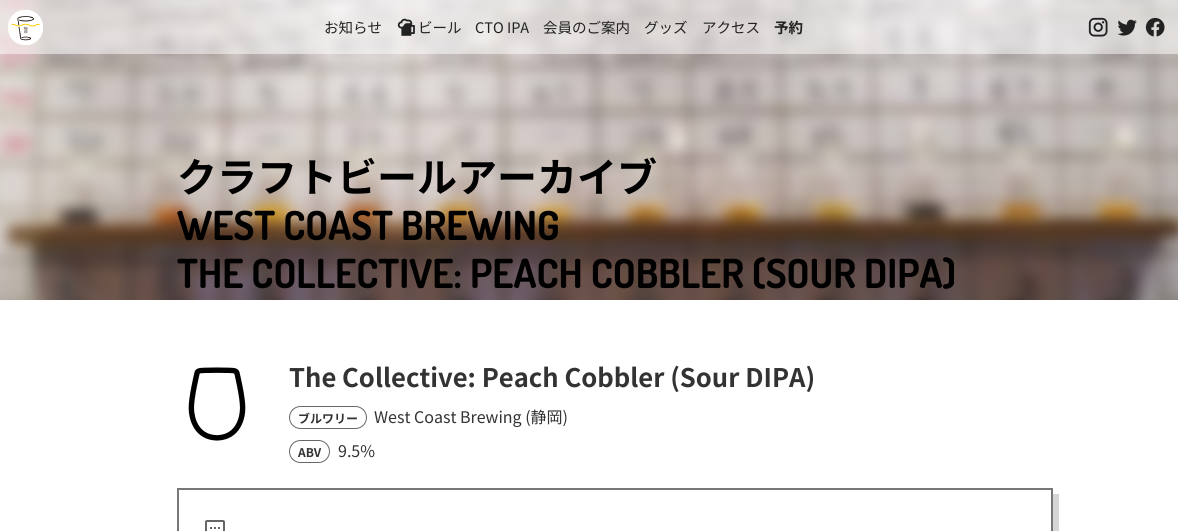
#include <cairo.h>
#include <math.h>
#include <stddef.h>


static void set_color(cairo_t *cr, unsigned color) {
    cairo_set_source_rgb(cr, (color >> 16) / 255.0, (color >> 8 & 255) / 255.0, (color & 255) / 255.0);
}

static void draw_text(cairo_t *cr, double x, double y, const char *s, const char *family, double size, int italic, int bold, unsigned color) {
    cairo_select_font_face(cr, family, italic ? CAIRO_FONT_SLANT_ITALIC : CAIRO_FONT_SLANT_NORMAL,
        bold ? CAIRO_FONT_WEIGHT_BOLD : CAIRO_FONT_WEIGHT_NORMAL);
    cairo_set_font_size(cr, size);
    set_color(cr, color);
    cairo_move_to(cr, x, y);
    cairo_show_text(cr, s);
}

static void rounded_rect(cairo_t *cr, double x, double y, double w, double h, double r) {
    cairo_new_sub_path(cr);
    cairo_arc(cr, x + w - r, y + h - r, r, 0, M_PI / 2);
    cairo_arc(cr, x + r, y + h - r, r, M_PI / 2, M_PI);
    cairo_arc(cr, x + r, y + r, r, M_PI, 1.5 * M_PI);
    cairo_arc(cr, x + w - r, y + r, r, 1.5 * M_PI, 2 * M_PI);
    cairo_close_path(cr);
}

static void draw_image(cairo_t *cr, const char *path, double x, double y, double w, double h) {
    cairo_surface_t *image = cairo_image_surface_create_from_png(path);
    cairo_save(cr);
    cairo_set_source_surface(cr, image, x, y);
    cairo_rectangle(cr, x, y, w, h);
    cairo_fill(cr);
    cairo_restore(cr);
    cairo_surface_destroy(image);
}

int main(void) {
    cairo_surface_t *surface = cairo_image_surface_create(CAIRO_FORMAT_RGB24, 1178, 531);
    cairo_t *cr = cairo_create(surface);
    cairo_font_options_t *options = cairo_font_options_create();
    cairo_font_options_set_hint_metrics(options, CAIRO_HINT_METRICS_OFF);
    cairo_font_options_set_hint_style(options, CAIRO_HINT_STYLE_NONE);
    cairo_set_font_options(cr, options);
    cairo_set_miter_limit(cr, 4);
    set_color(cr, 0xFFFFFF);
    cairo_paint(cr);
    draw_image(cr, "assets/img6.png", 0, 0, 1178, 300);
    cairo_set_source_rgba(cr, 1, 1, 1, 0.5);
    cairo_rectangle(cr, 0, 0, 1178, 54);
    cairo_fill(cr);
    set_color(cr, 0xFFFFFF);
    rounded_rect(cr, 8, 10, 35, 35, 17);
    cairo_fill(cr);
    draw_image(cr, "assets/img1.png", 8, 10, 35, 35);
    draw_text(cr, 324, 33, "お知らせ", "Noto Sans JP", 14.5, 0, 0, 0x222222);
    draw_image(cr, "assets/img2.png", 397, 18, 18, 18);
    draw_text(cr, 418, 33, "ビール", "Noto Sans JP", 14.5, 0, 0, 0x222222);
    draw_text(cr, 475, 33, "CTO IPA", "Noto Sans JP", 14.5, 0, 0, 0x222222);
    draw_text(cr, 543, 33, "会員のご案内", "Noto Sans JP", 14.5, 0, 0, 0x222222);
    draw_text(cr, 644, 33, "グッズ", "Noto Sans JP", 14.5, 0, 0, 0x222222);
    draw_text(cr, 702, 33, "アクセス", "Noto Sans JP", 14.5, 0, 0, 0x222222);
    draw_text(cr, 774, 33, "予約", "Noto Sans JP", 14.5, 0, 1, 0x222222);
    draw_image(cr, "assets/img3.png", 1088, 17, 20, 20);
    draw_image(cr, "assets/img4.png", 1117, 19, 20, 17);
    draw_image(cr, "assets/img5.png", 1145, 17, 20, 20);
    draw_text(cr, 177, 192, "クラフトビールアーカイブ", "Noto Sans JP", 40, 0, 1, 0x000000);
    draw_text(cr, 177, 240, "WEST COAST BREWING", "Dosis", 40, 0, 1, 0x000000);
    draw_text(cr, 177, 288, "THE COLLECTIVE: PEACH COBBLER (SOUR DIPA)", "Dosis", 40, 0, 1, 0x000000);
    draw_image(cr, "assets/img7.png", 188, 367, 58, 74);
    draw_text(cr, 289, 387, "The Collective: Peach Cobbler (Sour DIPA)", "Noto Sans JP", 25.6, 0, 1, 0x333333);
    rounded_rect(cr, 289.5, 406.5, 77, 22, 11);
    set_color(cr, 0x666666);
    cairo_set_line_width(cr, 1);
    cairo_stroke(cr);
    draw_text(cr, 298, 423, "ブルワリー", "Noto Sans JP", 12, 0, 1, 0x333333);
    draw_text(cr, 374, 423, "West Coast Brewing (静岡)", "Noto Sans JP", 16, 0, 0, 0x333333);
    rounded_rect(cr, 289.5, 440.5, 40, 22, 11);
    set_color(cr, 0x666666);
    cairo_stroke(cr);
    draw_text(cr, 298, 457, "ABV", "Noto Sans JP", 12, 0, 1, 0x333333);
    draw_text(cr, 338, 457, "9.5%", "Noto Sans JP", 16, 0, 0, 0x333333);
    set_color(cr, 0xD6D6D6);
    cairo_new_path(cr);
    cairo_move_to(cr, 183, 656);
    cairo_line_to(cr, 183, 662);
    cairo_line_to(cr, 1059, 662);
    cairo_line_to(cr, 1059, 494);
    cairo_line_to(cr, 1053, 494);
    cairo_line_to(cr, 1053, 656);
    cairo_close_path(cr);
    cairo_fill(cr);
    cairo_rectangle(cr, 178, 489, 874, 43);
    set_color(cr, 0x777777);
    cairo_set_line_width(cr, 2);
    cairo_stroke(cr);
    draw_image(cr, "assets/img8.png", 205, 520, 20, 11);
    cairo_surface_write_to_png(surface, "output.png");
    cairo_font_options_destroy(options);
    cairo_destroy(cr);
    cairo_surface_destroy(surface);
    return 0;
}
